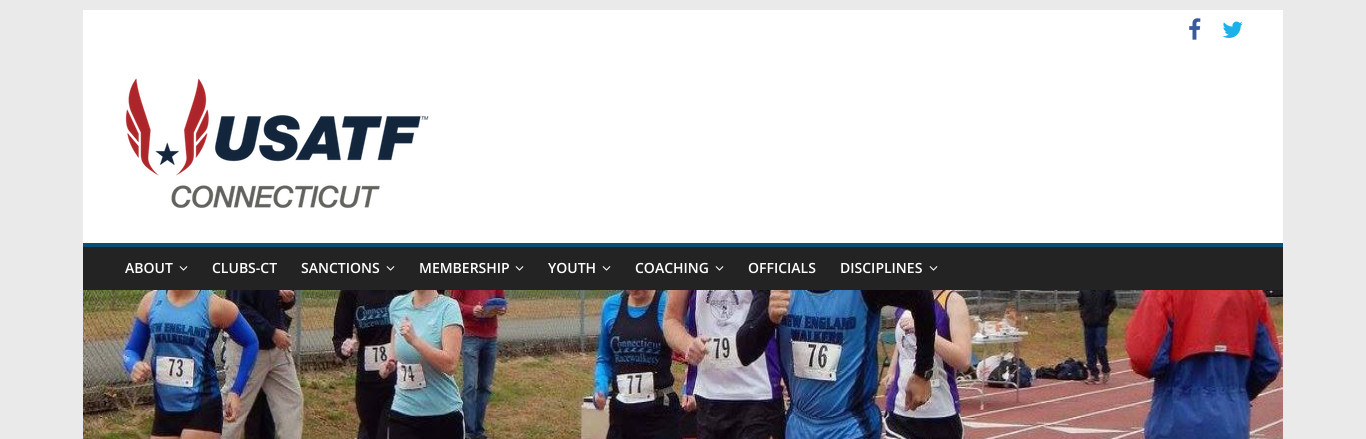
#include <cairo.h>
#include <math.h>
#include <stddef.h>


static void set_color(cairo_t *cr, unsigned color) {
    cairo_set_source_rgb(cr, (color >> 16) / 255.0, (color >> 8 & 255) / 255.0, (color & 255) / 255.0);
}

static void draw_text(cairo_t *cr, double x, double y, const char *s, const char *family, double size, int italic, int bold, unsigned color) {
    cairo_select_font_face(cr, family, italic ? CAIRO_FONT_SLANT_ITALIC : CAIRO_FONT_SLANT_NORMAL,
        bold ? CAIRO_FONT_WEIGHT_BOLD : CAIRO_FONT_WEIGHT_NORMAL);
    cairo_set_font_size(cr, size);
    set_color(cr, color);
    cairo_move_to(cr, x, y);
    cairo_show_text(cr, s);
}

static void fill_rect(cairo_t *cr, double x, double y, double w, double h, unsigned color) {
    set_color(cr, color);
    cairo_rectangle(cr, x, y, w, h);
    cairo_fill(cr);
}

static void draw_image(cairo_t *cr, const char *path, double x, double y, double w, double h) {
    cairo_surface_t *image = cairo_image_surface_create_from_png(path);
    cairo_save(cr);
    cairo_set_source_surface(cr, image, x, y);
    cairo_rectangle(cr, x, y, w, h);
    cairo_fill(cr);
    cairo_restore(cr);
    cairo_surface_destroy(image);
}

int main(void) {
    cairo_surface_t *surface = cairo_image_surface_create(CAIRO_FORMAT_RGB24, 1366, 439);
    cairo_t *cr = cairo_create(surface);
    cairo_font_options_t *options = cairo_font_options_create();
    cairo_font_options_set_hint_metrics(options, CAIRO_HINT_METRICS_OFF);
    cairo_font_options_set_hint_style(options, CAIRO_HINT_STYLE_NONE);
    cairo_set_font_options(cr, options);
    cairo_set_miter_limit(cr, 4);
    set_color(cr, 0xEAEAEA);
    cairo_paint(cr);
    fill_rect(cr, 83, 10, 1200, 233, 0xFFFFFF);
    draw_image(cr, "assets/img1.png", 1189, 18, 12, 22);
    draw_image(cr, "assets/img2.png", 1222, 21, 21, 17);
    draw_image(cr, "assets/img3.png", 125, 78, 304, 130);
    fill_rect(cr, 83, 247, 1200, 43, 0x232323);
    fill_rect(cr, 83, 243, 1200, 4, 0x094F75);
    draw_text(cr, 125, 273, "ABOUT", "Open Sans SemiBold", 14, 0, 0, 0xFFFFFF);
    draw_image(cr, "assets/img4.png", 179, 266, 9, 5);
    draw_text(cr, 212, 273, "CLUBS-CT", "Open Sans SemiBold", 14, 0, 0, 0xFFFFFF);
    draw_text(cr, 301, 273, "SANCTIONS", "Open Sans SemiBold", 14, 0, 0, 0xFFFFFF);
    draw_image(cr, "assets/img4.png", 386, 266, 9, 5);
    draw_text(cr, 419, 273, "MEMBERSHIP", "Open Sans SemiBold", 14, 0, 0, 0xFFFFFF);
    draw_image(cr, "assets/img4.png", 515, 266, 9, 5);
    draw_text(cr, 548, 273, "YOUTH", "Open Sans SemiBold", 14, 0, 0, 0xFFFFFF);
    draw_image(cr, "assets/img4.png", 602, 266, 9, 5);
    draw_text(cr, 635, 273, "COACHING", "Open Sans SemiBold", 14, 0, 0, 0xFFFFFF);
    draw_image(cr, "assets/img4.png", 715, 266, 9, 5);
    draw_text(cr, 748, 273, "OFFICIALS", "Open Sans SemiBold", 14, 0, 0, 0xFFFFFF);
    draw_text(cr, 840, 273, "DISCIPLINES", "Open Sans SemiBold", 14, 0, 0, 0xFFFFFF);
    draw_image(cr, "assets/img4.png", 929, 266, 9, 5);
    draw_image(cr, "assets/img5.png", 83, 290, 1200, 149);
    cairo_surface_write_to_png(surface, "output.png");
    cairo_font_options_destroy(options);
    cairo_destroy(cr);
    cairo_surface_destroy(surface);
    return 0;
}
